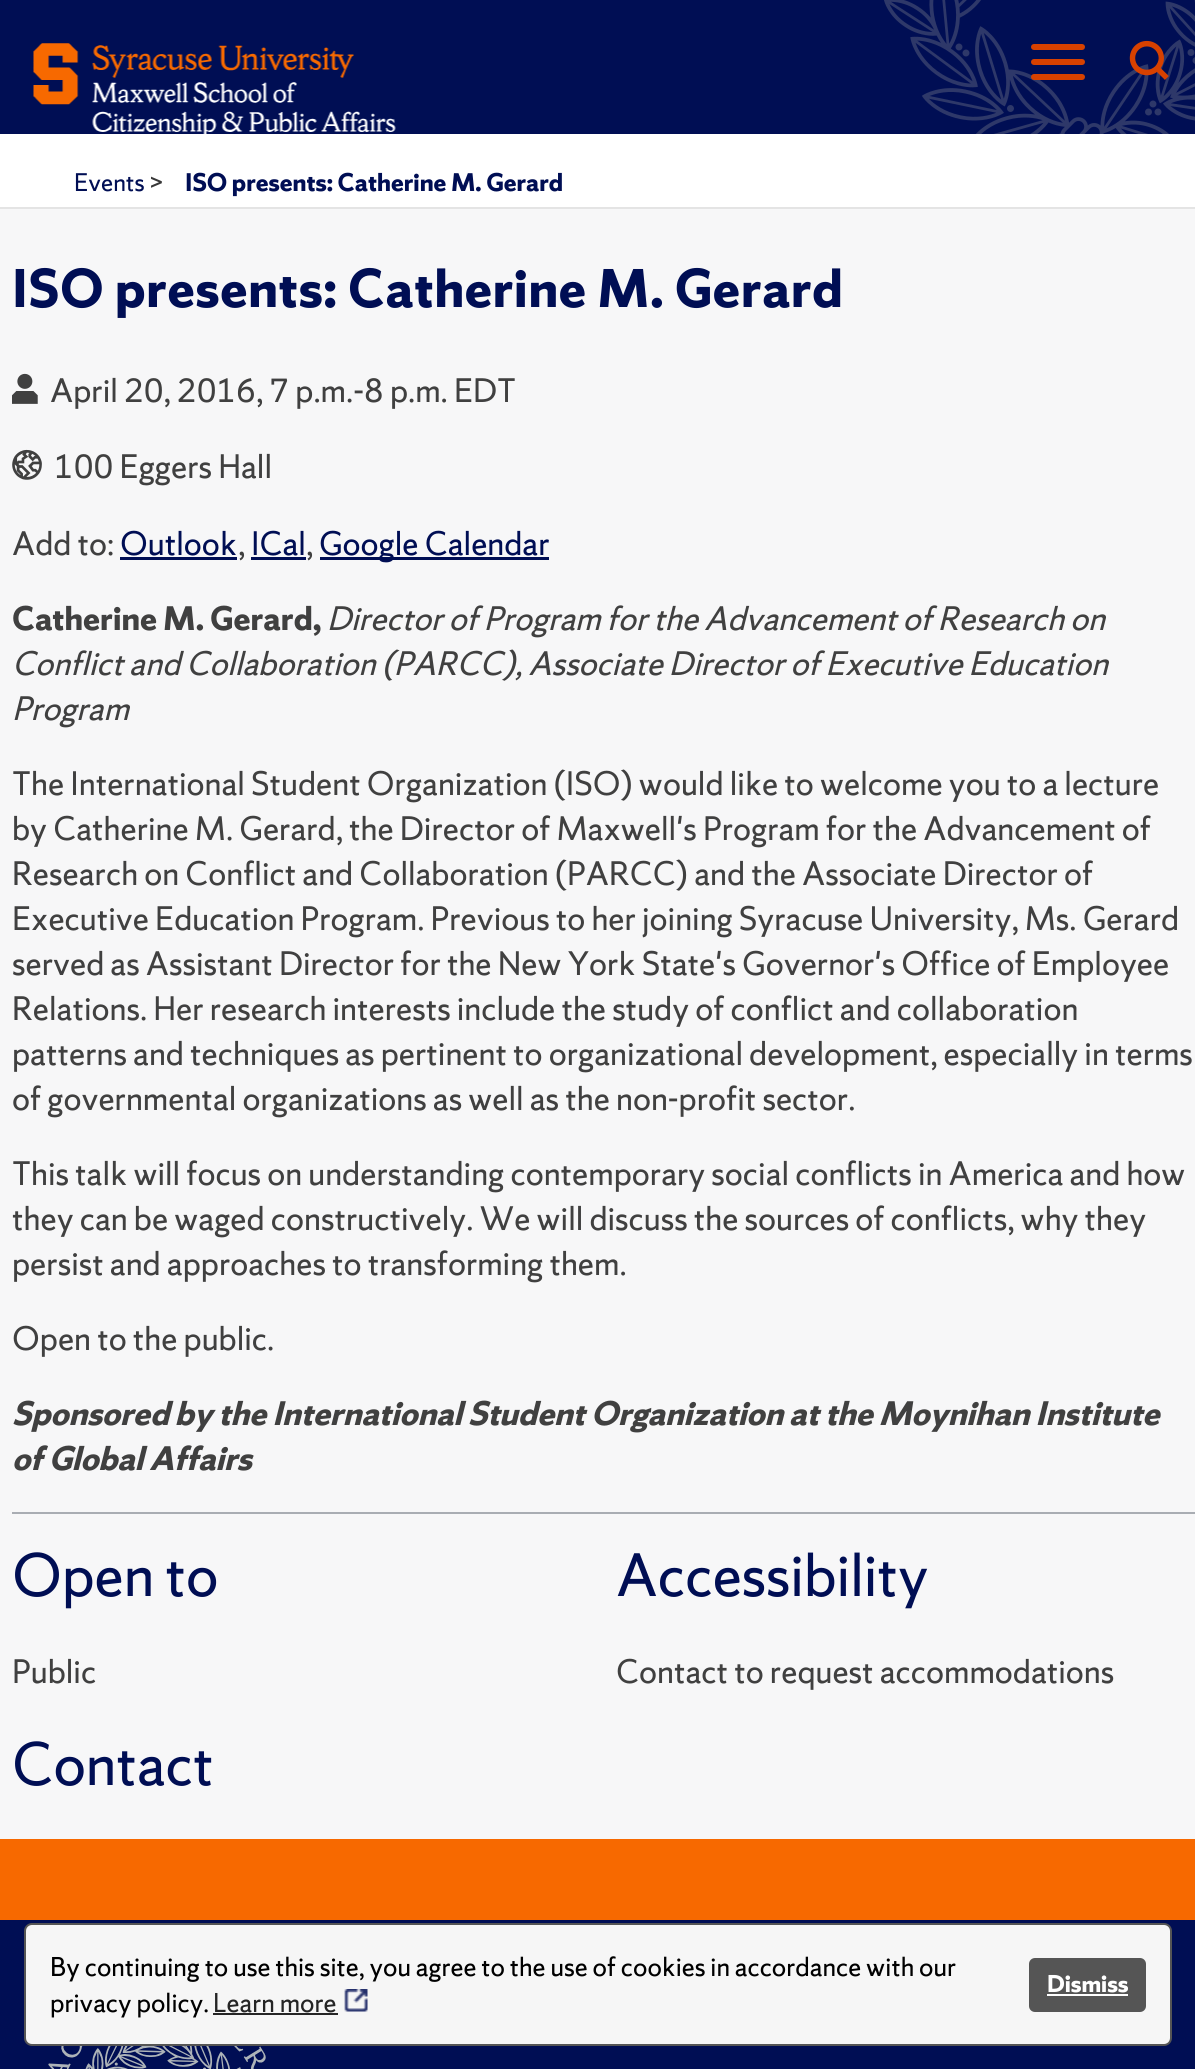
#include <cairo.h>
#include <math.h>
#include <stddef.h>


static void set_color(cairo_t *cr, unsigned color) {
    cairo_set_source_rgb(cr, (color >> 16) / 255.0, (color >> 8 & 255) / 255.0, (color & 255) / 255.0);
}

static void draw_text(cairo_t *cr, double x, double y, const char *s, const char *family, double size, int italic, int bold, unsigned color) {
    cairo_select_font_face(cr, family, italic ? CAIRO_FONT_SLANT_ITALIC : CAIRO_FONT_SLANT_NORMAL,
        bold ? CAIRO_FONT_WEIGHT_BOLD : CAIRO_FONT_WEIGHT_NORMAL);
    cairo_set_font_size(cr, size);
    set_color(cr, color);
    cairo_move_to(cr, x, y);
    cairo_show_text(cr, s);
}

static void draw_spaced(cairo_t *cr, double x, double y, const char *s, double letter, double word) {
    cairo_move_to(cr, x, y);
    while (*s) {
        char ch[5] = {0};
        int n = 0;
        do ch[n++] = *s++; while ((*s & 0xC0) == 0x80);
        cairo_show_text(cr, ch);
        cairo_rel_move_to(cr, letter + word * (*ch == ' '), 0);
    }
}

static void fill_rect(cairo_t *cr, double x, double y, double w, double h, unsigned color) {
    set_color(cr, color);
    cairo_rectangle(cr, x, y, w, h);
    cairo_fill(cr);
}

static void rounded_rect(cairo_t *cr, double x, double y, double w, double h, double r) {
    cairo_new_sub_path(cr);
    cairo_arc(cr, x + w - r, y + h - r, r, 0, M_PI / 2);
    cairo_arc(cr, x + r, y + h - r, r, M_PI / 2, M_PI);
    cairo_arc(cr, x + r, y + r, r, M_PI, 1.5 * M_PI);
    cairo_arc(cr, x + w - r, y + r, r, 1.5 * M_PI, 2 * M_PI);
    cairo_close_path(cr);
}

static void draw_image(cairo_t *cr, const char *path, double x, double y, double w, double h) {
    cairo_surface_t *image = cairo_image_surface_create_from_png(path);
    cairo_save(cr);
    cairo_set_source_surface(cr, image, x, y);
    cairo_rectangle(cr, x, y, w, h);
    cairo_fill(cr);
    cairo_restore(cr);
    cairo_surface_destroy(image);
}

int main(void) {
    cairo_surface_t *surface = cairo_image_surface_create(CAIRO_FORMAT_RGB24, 1195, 2069);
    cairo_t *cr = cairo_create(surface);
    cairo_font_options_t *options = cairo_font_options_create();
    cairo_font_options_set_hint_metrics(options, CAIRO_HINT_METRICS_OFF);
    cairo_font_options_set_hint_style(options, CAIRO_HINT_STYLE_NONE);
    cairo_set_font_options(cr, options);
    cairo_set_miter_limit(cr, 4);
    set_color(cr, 0xF7F7F8);
    cairo_paint(cr);
    fill_rect(cr, 0, 0, 1195, 134, 0x000E54);
    draw_image(cr, "assets/img1.png", 884, 0, 311, 134);
    draw_image(cr, "assets/img2.png", 33, 43, 363, 91);
    set_color(cr, 0xD74100);
    rounded_rect(cr, 1031, 44, 54, 6, 3);
    cairo_fill(cr);
    rounded_rect(cr, 1031, 59, 54, 6, 3);
    cairo_fill(cr);
    rounded_rect(cr, 1031, 74, 54, 6, 3);
    cairo_fill(cr);
    draw_image(cr, "assets/img3.png", 1129, 40, 40, 40);
    fill_rect(cr, 0, 134, 1195, 73, 0xFFFFFF);
    fill_rect(cr, 0, 207, 1195, 2, 0xE4E4E4);
    draw_text(cr, 74, 191, "Events", "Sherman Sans", 22.5, 0, 0, 0x000E54);
    draw_text(cr, 149, 191, ">", "Sherman Sans", 22.5, 0, 0, 0x383838);
    draw_text(cr, 185, 191, "ISO presents: Catherine M. Gerard", "Sherman Sans", 22.5, 0, 1, 0x000E54);
    cairo_set_font_size(cr, 48);
    draw_spaced(cr, 12, 307, "ISO presents: Catherine M. Gerard", 0.75, 0);
    draw_image(cr, "assets/img4.png", 12, 373, 26, 31);
    draw_text(cr, 50, 402, "April 20, 2016, 7 p.m.-8 p.m. EDT", "Sherman Sans", 30, 0, 0, 0x404040);
    draw_image(cr, "assets/img5.png", 12, 449, 30, 31);
    draw_text(cr, 54, 478, "100 Eggers Hall", "Sherman Sans", 30, 0, 0, 0x404040);
    draw_text(cr, 12, 555, "Add to:", "Sherman Sans", 30, 0, 0, 0x404040);
    draw_text(cr, 120, 555, "Outlook", "Sherman Sans", 30, 0, 0, 0x000E54);
    fill_rect(cr, 120, 557, 117, 3, 0x000E54);
    draw_text(cr, 238, 555, ",", "Sherman Sans", 30, 0, 0, 0x404040);
    draw_text(cr, 251, 555, "ICal", "Sherman Sans", 30, 0, 0, 0x000E54);
    fill_rect(cr, 251, 557, 55, 3, 0x000E54);
    draw_text(cr, 306, 555, ",", "Sherman Sans", 30, 0, 0, 0x404040);
    fill_rect(cr, 320, 557, 229, 3, 0x000E54);
    draw_text(cr, 319, 555, "Google Calendar", "Sherman Sans", 30, 0, 0, 0x000E54);
    draw_text(cr, 12, 630, "Catherine M. Gerard,", "Sherman Sans", 30, 0, 1, 0x404040);
    draw_text(cr, 327, 630, "Director of Program for the Advancement of Research on", "Sherman Sans", 30, 1, 0, 0x404040);
    draw_text(cr, 12, 675, "Conflict and Collaboration (PARCC), Associate Director of Executive Education", "Sherman Sans", 30, 1, 0, 0x404040);
    draw_text(cr, 12, 720, "Program", "Sherman Sans", 30, 1, 0, 0x404040);
    draw_text(cr, 12, 795, "The International Student Organization (ISO) would like to welcome you to a lecture", "Sherman Sans", 30, 0, 0, 0x404040);
    draw_text(cr, 12, 840, "by Catherine M. Gerard, the Director of Maxwell's Program for the Advancement of", "Sherman Sans", 30, 0, 0, 0x404040);
    draw_text(cr, 12, 885, "Research on Conflict and Collaboration (PARCC) and the Associate Director of", "Sherman Sans", 30, 0, 0, 0x404040);
    draw_text(cr, 12, 930, "Executive Education Program. Previous to her joining Syracuse University, Ms. Gerard", "Sherman Sans", 30, 0, 0, 0x404040);
    draw_text(cr, 12, 975, "served as Assistant Director for the New York State's Governor's Office of Employee", "Sherman Sans", 30, 0, 0, 0x404040);
    draw_text(cr, 12, 1020, "Relations. Her research interests include the study of conflict and collaboration", "Sherman Sans", 30, 0, 0, 0x404040);
    draw_text(cr, 12, 1065, "patterns and techniques as pertinent to organizational development, especially in terms", "Sherman Sans", 30, 0, 0, 0x404040);
    draw_text(cr, 12, 1110, "of governmental organizations as well as the non-profit sector.", "Sherman Sans", 30, 0, 0, 0x404040);
    draw_text(cr, 12, 1185, "This talk will focus on understanding contemporary social conflicts in America and how", "Sherman Sans", 30, 0, 0, 0x404040);
    draw_text(cr, 12, 1230, "they can be waged constructively. We will discuss the sources of conflicts, why they", "Sherman Sans", 30, 0, 0, 0x404040);
    draw_text(cr, 12, 1275, "persist and approaches to transforming them.", "Sherman Sans", 30, 0, 0, 0x404040);
    draw_text(cr, 12, 1350, "Open to the public.", "Sherman Sans", 30, 0, 0, 0x404040);
    draw_text(cr, 12, 1425, "Sponsored by the International Student Organization at the Moynihan Institute", "Sherman Sans", 30, 1, 1, 0x404040);
    draw_text(cr, 12, 1470, "of Global Affairs", "Sherman Sans", 30, 1, 1, 0x404040);
    fill_rect(cr, 12, 1512, 1183, 2, 0xA9ADB3);
    draw_text(cr, 12, 1596, "Open to", "Sherman Sans", 54, 0, 0, 0x000E54);
    draw_text(cr, 12, 1683, "Public", "Sherman Sans", 30, 0, 0, 0x404040);
    draw_text(cr, 616, 1596, "Accessibility", "Sherman Sans", 54, 0, 0, 0x000E54);
    draw_text(cr, 616, 1683, "Contact to request accommodations", "Sherman Sans", 30, 0, 0, 0x404040);
    draw_text(cr, 12, 1785, "Contact", "Sherman Sans", 54, 0, 0, 0x000E54);
    fill_rect(cr, 0, 1839, 1195, 81, 0xF76900);
    fill_rect(cr, 0, 1920, 1195, 149, 0x000E54);
    draw_image(cr, "assets/img6.png", 48, 2046, 218, 23);
    set_color(cr, 0xF6F6F6);
    rounded_rect(cr, 25, 1924, 1146, 121, 7);
    cairo_fill_preserve(cr);
    set_color(cr, 0x555555);
    cairo_stroke(cr);
    draw_text(cr, 50, 1976, "By continuing to use this site, you agree to the use of cookies in accordance with our", "Sherman Sans", 24, 0, 0, 0x000000);
    draw_text(cr, 50, 2012, "privacy policy.", "Sherman Sans", 24, 0, 0, 0x000000);
    draw_text(cr, 213, 2012, "Learn more", "Sherman Sans", 24, 0, 0, 0x252525);
    fill_rect(cr, 213, 2013, 125, 2, 0x252525);
    draw_image(cr, "assets/img7.png", 344, 1989, 24, 23);
    set_color(cr, 0x555555);
    rounded_rect(cr, 1029, 1958, 117, 54, 6);
    cairo_fill(cr);
    draw_text(cr, 1047, 1992, "Dismiss", "Sherman Sans", 21.5, 0, 1, 0xFFFFFF);
    fill_rect(cr, 1047, 1994, 81, 2, 0xFFFFFF);
    cairo_surface_write_to_png(surface, "output.png");
    cairo_font_options_destroy(options);
    cairo_destroy(cr);
    cairo_surface_destroy(surface);
    return 0;
}
